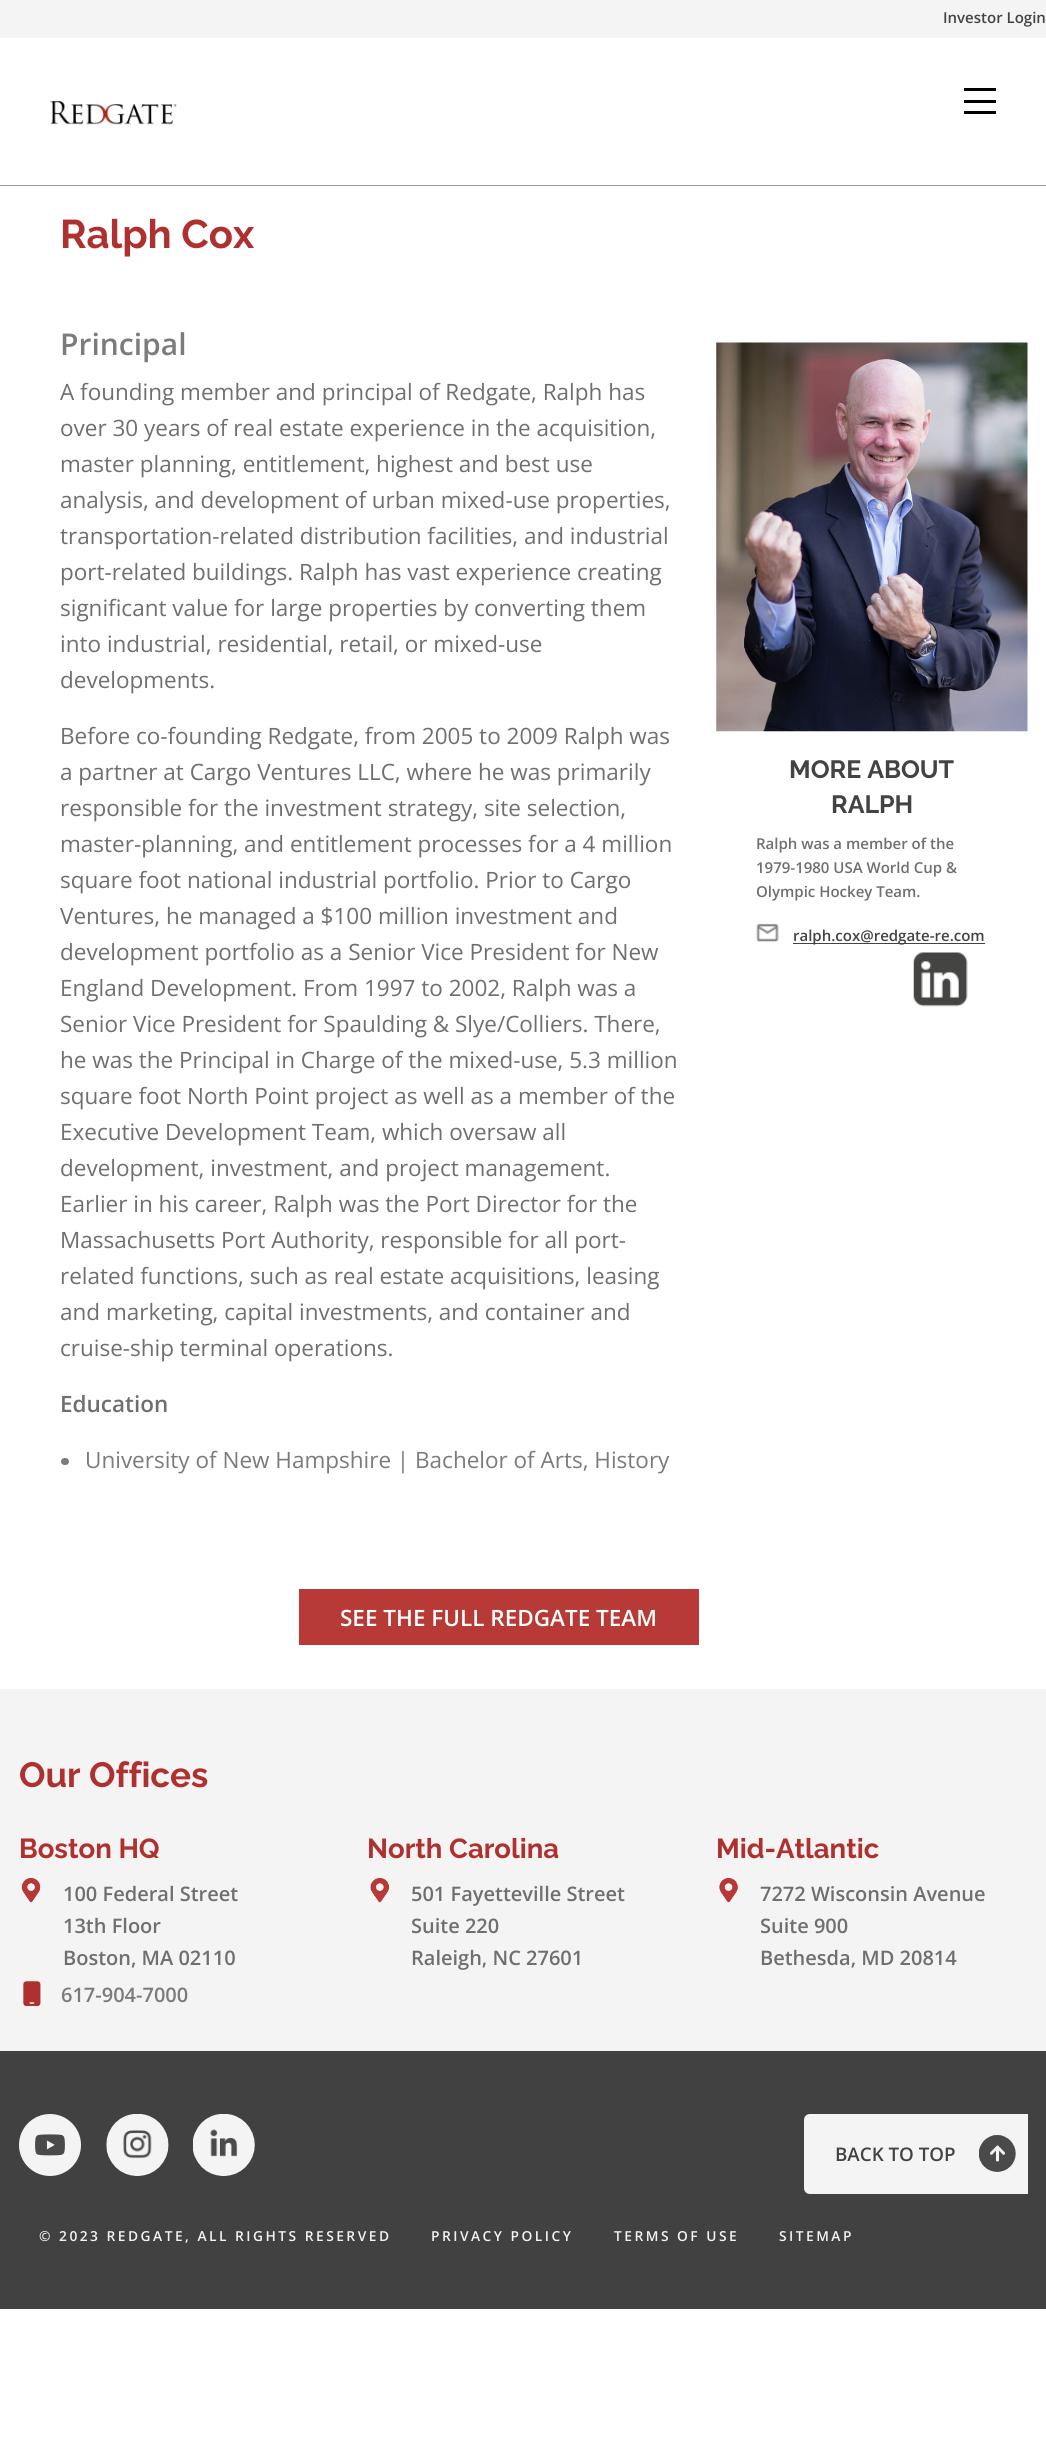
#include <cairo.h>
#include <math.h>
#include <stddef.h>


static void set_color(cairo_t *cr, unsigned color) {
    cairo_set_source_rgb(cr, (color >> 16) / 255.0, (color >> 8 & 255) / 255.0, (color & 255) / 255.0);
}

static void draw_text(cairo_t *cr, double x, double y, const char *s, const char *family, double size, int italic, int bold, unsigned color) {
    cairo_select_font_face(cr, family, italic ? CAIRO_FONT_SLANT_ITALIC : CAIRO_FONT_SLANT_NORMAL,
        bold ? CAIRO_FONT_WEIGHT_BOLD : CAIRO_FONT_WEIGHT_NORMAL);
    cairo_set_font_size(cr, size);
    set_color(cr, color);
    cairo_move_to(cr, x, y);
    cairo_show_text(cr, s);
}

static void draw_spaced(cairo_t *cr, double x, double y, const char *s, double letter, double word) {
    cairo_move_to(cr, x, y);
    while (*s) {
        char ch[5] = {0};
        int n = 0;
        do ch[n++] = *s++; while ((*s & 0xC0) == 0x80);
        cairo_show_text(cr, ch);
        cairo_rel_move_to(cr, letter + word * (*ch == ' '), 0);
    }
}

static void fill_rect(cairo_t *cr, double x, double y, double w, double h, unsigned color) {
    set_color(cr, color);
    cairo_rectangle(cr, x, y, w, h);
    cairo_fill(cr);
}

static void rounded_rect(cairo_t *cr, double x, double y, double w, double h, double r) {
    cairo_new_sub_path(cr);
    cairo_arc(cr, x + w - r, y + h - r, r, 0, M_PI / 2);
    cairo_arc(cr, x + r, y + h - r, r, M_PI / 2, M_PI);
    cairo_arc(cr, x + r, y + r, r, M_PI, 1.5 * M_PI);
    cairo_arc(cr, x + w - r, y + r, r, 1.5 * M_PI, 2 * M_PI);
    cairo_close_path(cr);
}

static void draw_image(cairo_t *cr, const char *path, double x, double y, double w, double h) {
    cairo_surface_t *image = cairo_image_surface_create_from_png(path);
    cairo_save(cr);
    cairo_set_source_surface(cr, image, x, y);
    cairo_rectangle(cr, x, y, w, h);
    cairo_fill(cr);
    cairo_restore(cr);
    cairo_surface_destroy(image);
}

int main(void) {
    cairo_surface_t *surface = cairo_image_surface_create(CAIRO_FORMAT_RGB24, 1046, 2450);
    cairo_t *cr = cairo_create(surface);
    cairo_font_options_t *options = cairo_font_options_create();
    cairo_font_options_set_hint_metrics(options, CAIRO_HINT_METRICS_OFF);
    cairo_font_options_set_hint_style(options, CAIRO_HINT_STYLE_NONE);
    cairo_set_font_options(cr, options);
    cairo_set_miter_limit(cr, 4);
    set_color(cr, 0xFFFFFF);
    cairo_paint(cr);
    fill_rect(cr, 0, 0, 1046, 38, 0xF4F4F4);
    draw_text(cr, 943, 23, "Investor Login", "Open Sans SemiBold", 15, 0, 0, 0x434342);
    fill_rect(cr, 0, 185, 1046, 1, 0x979797);
    draw_image(cr, "assets/img1.png", 50, 101, 127, 24);
    fill_rect(cr, 964, 88, 32, 3, 0x000000);
    fill_rect(cr, 964, 100, 32, 3, 0x000000);
    fill_rect(cr, 964, 111, 32, 3, 0x000000);
    draw_text(cr, 60, 248, "Ralph Cox", "Raleway", 40, 0, 1, 0xAF312F);
    draw_text(cr, 60, 355, "Principal", "Open Sans SemiBold", 30, 0, 0, 0x7B7B7B);
    draw_text(cr, 60, 400, "A founding member and principal of Redgate, Ralph has", "Open Sans", 22.5, 0, 0, 0x6F6F6D);
    draw_text(cr, 60, 436, "over 30 years of real estate experience in the acquisition,", "Open Sans", 22.5, 0, 0, 0x6F6F6D);
    draw_text(cr, 60, 472, "master planning, entitlement, highest and best use", "Open Sans", 22.5, 0, 0, 0x6F6F6D);
    draw_text(cr, 60, 508, "analysis, and development of urban mixed-use properties,", "Open Sans", 22.5, 0, 0, 0x6F6F6D);
    draw_text(cr, 60, 544, "transportation-related distribution facilities, and industrial", "Open Sans", 22.5, 0, 0, 0x6F6F6D);
    draw_text(cr, 60, 580, "port-related buildings. Ralph has vast experience creating", "Open Sans", 22.5, 0, 0, 0x6F6F6D);
    draw_text(cr, 60, 616, "significant value for large properties by converting them", "Open Sans", 22.5, 0, 0, 0x6F6F6D);
    draw_text(cr, 60, 652, "into industrial, residential, retail, or mixed-use", "Open Sans", 22.5, 0, 0, 0x6F6F6D);
    draw_text(cr, 60, 688, "developments.", "Open Sans", 22.5, 0, 0, 0x6F6F6D);
    draw_text(cr, 60, 744, "Before co-founding Redgate, from 2005 to 2009 Ralph was", "Open Sans", 22.5, 0, 0, 0x6F6F6D);
    draw_text(cr, 60, 780, "a partner at Cargo Ventures LLC, where he was primarily", "Open Sans", 22.5, 0, 0, 0x6F6F6D);
    draw_text(cr, 60, 816, "responsible for the investment strategy, site selection,", "Open Sans", 22.5, 0, 0, 0x6F6F6D);
    draw_text(cr, 60, 852, "master-planning, and entitlement processes for a 4 million", "Open Sans", 22.5, 0, 0, 0x6F6F6D);
    draw_text(cr, 60, 888, "square foot national industrial portfolio. Prior to Cargo", "Open Sans", 22.5, 0, 0, 0x6F6F6D);
    draw_text(cr, 60, 924, "Ventures, he managed a $100 million investment and", "Open Sans", 22.5, 0, 0, 0x6F6F6D);
    draw_text(cr, 60, 960, "development portfolio as a Senior Vice President for New", "Open Sans", 22.5, 0, 0, 0x6F6F6D);
    draw_text(cr, 60, 996, "England Development. From 1997 to 2002, Ralph was a", "Open Sans", 22.5, 0, 0, 0x6F6F6D);
    draw_text(cr, 60, 1032, "Senior Vice President for Spaulding & Slye/Colliers. There,", "Open Sans", 22.5, 0, 0, 0x6F6F6D);
    draw_text(cr, 60, 1068, "he was the Principal in Charge of the mixed-use, 5.3 million", "Open Sans", 22.5, 0, 0, 0x6F6F6D);
    draw_text(cr, 60, 1104, "square foot North Point project as well as a member of the", "Open Sans", 22.5, 0, 0, 0x6F6F6D);
    draw_text(cr, 60, 1140, "Executive Development Team, which oversaw all", "Open Sans", 22.5, 0, 0, 0x6F6F6D);
    draw_text(cr, 60, 1176, "development, investment, and project management.", "Open Sans", 22.5, 0, 0, 0x6F6F6D);
    draw_text(cr, 60, 1212, "Earlier in his career, Ralph was the Port Director for the", "Open Sans", 22.5, 0, 0, 0x6F6F6D);
    draw_text(cr, 60, 1248, "Massachusetts Port Authority, responsible for all port-", "Open Sans", 22.5, 0, 0, 0x6F6F6D);
    draw_text(cr, 60, 1284, "related functions, such as real estate acquisitions, leasing", "Open Sans", 22.5, 0, 0, 0x6F6F6D);
    draw_text(cr, 60, 1320, "and marketing, capital investments, and container and", "Open Sans", 22.5, 0, 0, 0x6F6F6D);
    draw_text(cr, 60, 1356, "cruise-ship terminal operations.", "Open Sans", 22.5, 0, 0, 0x6F6F6D);
    draw_text(cr, 60, 1412, "Education", "Open Sans SemiBold", 22.5, 0, 0, 0x6F6F6D);
    set_color(cr, 0x7B7B7B);
    rounded_rect(cr, 61, 1458, 8, 7, 3.5);
    cairo_fill(cr);
    draw_text(cr, 85, 1468, "University of New Hampshire | Bachelor of Arts, History", "Open Sans", 22.5, 0, 0, 0x7B7B7B);
    draw_image(cr, "assets/img2.png", 716, 342, 312, 390);
    draw_text(cr, 789, 778, "MORE ABOUT", "Raleway", 25, 0, 1, 0x434342);
    draw_text(cr, 831, 813, "RALPH", "Raleway", 25, 0, 1, 0x434342);
    draw_text(cr, 756, 849, "Ralph was a member of the", "Open Sans SemiBold", 15, 0, 0, 0x6F6F6D);
    draw_text(cr, 756, 873, "1979-1980 USA World Cup &", "Open Sans SemiBold", 15, 0, 0, 0x6F6F6D);
    draw_text(cr, 756, 897, "Olympic Hockey Team.", "Open Sans SemiBold", 15, 0, 0, 0x6F6F6D);
    draw_image(cr, "assets/img3.png", 756, 923, 23, 19);
    fill_rect(cr, 793, 943, 192, 1, 0x434342);
    draw_text(cr, 793, 941, "ralph.cox@redgate-re.com", "Open Sans SemiBold", 15, 0, 0, 0x434342);
    draw_image(cr, "assets/img4.png", 913, 952, 55, 55);
    fill_rect(cr, 299, 1589, 400, 56, 0xB83A36);
    draw_text(cr, 340, 1626, "SEE THE FULL REDGATE TEAM", "Open Sans SemiBold", 22.5, 0, 0, 0xFFFFFF);
    fill_rect(cr, 0, 1689, 1046, 362, 0xF4F4F4);
    draw_text(cr, 19, 1787, "Our Offices", "Raleway", 35, 0, 1, 0xAF312F);
    draw_text(cr, 19, 1858, "Boston HQ", "Raleway", 27.5, 0, 1, 0xAF312F);
    draw_image(cr, "assets/img5.png", 21, 1878, 20, 25);
    draw_text(cr, 63, 1901, "100 Federal Street", "Open Sans SemiBold", 20, 0, 0, 0x6F6F6D);
    draw_text(cr, 63, 1933, "13th Floor", "Open Sans SemiBold", 20, 0, 0, 0x6F6F6D);
    draw_text(cr, 63, 1965, "Boston, MA 02110", "Open Sans SemiBold", 20, 0, 0, 0x6F6F6D);
    draw_image(cr, "assets/img6.png", 23, 1981, 18, 25);
    draw_text(cr, 61, 2002, "617-904-7000", "Open Sans SemiBold", 20, 0, 0, 0x7B7B7B);
    draw_text(cr, 367, 1858, "North Carolina", "Raleway", 27.5, 0, 1, 0xAF312F);
    draw_image(cr, "assets/img7.png", 370, 1878, 20, 25);
    draw_text(cr, 411, 1901, "501 Fayetteville Street", "Open Sans SemiBold", 20, 0, 0, 0x6F6F6D);
    draw_text(cr, 411, 1933, "Suite 220", "Open Sans SemiBold", 20, 0, 0, 0x6F6F6D);
    draw_text(cr, 411, 1965, "Raleigh, NC 27601", "Open Sans SemiBold", 20, 0, 0, 0x6F6F6D);
    draw_text(cr, 716, 1858, "Mid-Atlantic", "Raleway", 27.5, 0, 1, 0xAF312F);
    draw_image(cr, "assets/img8.png", 719, 1878, 20, 25);
    draw_text(cr, 760, 1901, "7272 Wisconsin Avenue", "Open Sans SemiBold", 20, 0, 0, 0x6F6F6D);
    draw_text(cr, 760, 1933, "Suite 900", "Open Sans SemiBold", 20, 0, 0, 0x6F6F6D);
    draw_text(cr, 760, 1965, "Bethesda, MD 20814", "Open Sans SemiBold", 20, 0, 0, 0x6F6F6D);
    fill_rect(cr, 0, 2051, 1046, 258, 0x414141);
    draw_image(cr, "assets/img9.png", 19, 2114, 62, 62);
    draw_image(cr, "assets/img10.png", 106, 2114, 63, 62);
    draw_image(cr, "assets/img11.png", 193, 2114, 62, 62);
    set_color(cr, 0xF4F4F4);
    cairo_new_path(cr);
    cairo_move_to(cr, 810, 2114);
    cairo_line_to(cr, 1028, 2114);
    cairo_line_to(cr, 1028, 2194);
    cairo_line_to(cr, 810, 2194);
    cairo_curve_to(cr, 806.5, 2194, 804, 2191.5, 804, 2188);
    cairo_line_to(cr, 804, 2120);
    cairo_curve_to(cr, 804, 2116.5, 806.5, 2114, 810, 2114);
    cairo_close_path(cr);
    cairo_fill(cr);
    draw_text(cr, 835, 2161, "BACK TO TOP", "Open Sans SemiBold", 18.75, 0, 0, 0x434342);
    draw_image(cr, "assets/img12.png", 979, 2135, 37, 37);
    cairo_set_font_size(cr, 13.75);
    set_color(cr, 0xF4F4F4);
    draw_spaced(cr, 39, 2241, "© 2023 REDGATE, ALL RIGHTS RESERVED", 2.5, 0);
    draw_spaced(cr, 431, 2241, "PRIVACY POLICY", 2.5, 0);
    draw_spaced(cr, 614, 2241, "TERMS OF USE", 2.5, 0);
    draw_spaced(cr, 779, 2241, "SITEMAP", 2.5, 0);
    cairo_surface_write_to_png(surface, "output.png");
    cairo_font_options_destroy(options);
    cairo_destroy(cr);
    cairo_surface_destroy(surface);
    return 0;
}
